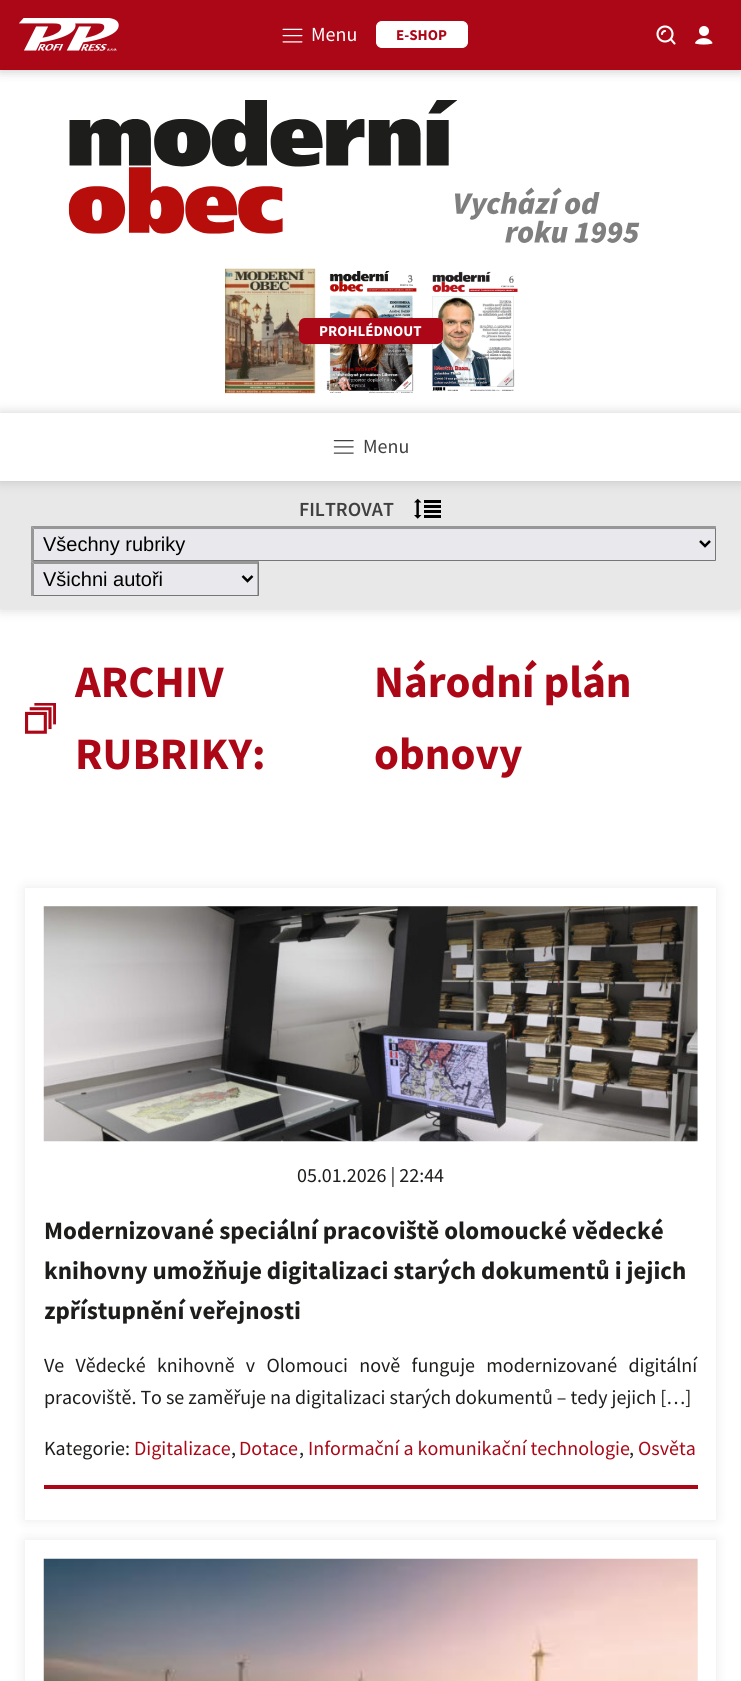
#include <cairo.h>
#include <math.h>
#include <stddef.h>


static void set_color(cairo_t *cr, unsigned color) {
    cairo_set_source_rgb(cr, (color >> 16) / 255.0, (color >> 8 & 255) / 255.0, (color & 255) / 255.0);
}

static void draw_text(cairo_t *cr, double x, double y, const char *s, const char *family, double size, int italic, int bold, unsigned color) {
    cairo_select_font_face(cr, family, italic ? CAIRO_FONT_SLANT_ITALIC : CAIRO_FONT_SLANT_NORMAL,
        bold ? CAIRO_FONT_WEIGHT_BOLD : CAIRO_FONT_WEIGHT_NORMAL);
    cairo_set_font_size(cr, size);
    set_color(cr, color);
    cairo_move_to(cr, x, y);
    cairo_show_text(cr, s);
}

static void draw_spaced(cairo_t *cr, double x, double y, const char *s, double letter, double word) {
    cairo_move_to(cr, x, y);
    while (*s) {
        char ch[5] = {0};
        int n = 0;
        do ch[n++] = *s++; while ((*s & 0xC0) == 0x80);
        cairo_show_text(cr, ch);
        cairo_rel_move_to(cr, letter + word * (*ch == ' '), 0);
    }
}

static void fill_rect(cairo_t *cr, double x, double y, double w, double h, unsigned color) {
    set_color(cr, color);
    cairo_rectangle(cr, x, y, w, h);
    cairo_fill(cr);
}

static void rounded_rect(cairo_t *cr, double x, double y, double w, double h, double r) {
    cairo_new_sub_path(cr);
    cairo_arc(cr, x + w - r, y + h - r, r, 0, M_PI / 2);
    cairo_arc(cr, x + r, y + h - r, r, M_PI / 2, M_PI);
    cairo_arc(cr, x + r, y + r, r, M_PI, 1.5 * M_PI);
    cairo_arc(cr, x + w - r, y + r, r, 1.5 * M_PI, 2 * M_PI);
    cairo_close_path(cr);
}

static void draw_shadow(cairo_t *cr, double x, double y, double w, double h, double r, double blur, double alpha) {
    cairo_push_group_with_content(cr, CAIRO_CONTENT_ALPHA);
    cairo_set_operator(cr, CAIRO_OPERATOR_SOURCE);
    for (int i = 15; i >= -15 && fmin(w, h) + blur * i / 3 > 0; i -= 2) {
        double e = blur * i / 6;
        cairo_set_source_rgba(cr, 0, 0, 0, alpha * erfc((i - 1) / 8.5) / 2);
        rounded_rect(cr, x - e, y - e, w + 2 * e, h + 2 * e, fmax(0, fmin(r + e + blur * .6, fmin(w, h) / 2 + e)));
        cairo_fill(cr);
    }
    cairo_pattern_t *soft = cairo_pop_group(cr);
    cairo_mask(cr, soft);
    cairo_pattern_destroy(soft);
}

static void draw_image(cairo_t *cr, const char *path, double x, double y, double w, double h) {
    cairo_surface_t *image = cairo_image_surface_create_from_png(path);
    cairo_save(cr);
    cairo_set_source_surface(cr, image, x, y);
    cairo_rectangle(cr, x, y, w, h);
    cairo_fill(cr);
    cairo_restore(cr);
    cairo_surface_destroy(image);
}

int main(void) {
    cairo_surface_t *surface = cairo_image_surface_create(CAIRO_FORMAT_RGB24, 741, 1681);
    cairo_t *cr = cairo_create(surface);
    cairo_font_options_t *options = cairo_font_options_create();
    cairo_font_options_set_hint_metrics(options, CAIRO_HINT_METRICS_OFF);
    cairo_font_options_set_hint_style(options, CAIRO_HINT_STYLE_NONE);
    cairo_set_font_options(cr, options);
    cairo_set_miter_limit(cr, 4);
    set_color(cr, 0xFFFFFF);
    cairo_paint(cr);
    set_color(cr, 0x000000);
    draw_shadow(cr, 0, 0, 741, 70, 0, 6, 0.25);
    fill_rect(cr, 0, 0, 741, 70, 0xAB0717);
    draw_image(cr, "assets/img1.png", 19, 18, 100, 33);
    draw_image(cr, "assets/img2.png", 282, 28, 21, 15);
    draw_text(cr, 311, 41, "Menu", "Source Sans Pro", 20, 0, 0, 0xFFFFFF);
    rounded_rect(cr, 376.5, 21.5, 91, 26, 5.5);
    cairo_fill_preserve(cr);
    cairo_set_line_width(cr, 1);
    cairo_stroke(cr);
    draw_text(cr, 396, 40, "E-SHOP", "Source Sans Pro", 15, 0, 1, 0xAB0717);
    cairo_new_path(cr);
    cairo_arc(cr, 665, 34, 7.5, 0, 2 * M_PI);
    set_color(cr, 0xFFFFFF);
    cairo_set_line_width(cr, 2.1);
    cairo_stroke(cr);
    cairo_new_path(cr);
    cairo_move_to(cr, 665, 31);
    cairo_curve_to(cr, 663.5, 31, 662, 32.5, 662, 34);
    cairo_move_to(cr, 674.5, 43.5);
    cairo_line_to(cr, 671.5, 40);
    cairo_set_line_cap(cr, CAIRO_LINE_CAP_ROUND);
    cairo_stroke(cr);
    draw_image(cr, "assets/img3.png", 695, 26, 18, 19);
    draw_image(cr, "assets/img4.png", 68, 100, 572, 143);
    draw_image(cr, "assets/img5.png", 225, 268, 293, 126);
    set_color(cr, 0x000000);
    draw_shadow(cr, 305, 324, 131, 14, 0, 6, 0.15);
    set_color(cr, 0xAB0717);
    rounded_rect(cr, 299, 318, 144, 26, 6);
    cairo_fill(cr);
    draw_text(cr, 319, 336, "PROHLÉDNOUT", "Source Sans Pro", 15, 0, 1, 0xFFFFFF);
    cairo_save(cr);
    cairo_set_fill_rule(cr, CAIRO_FILL_RULE_EVEN_ODD);
    cairo_new_path(cr);
    cairo_move_to(cr, 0, 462);
    cairo_line_to(cr, 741, 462);
    cairo_line_to(cr, 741, 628);
    cairo_line_to(cr, 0, 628);
    cairo_close_path(cr);
    cairo_move_to(cr, 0, 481);
    cairo_line_to(cr, 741, 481);
    cairo_line_to(cr, 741, 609);
    cairo_line_to(cr, 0, 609);
    cairo_close_path(cr);
    cairo_clip(cr);
    set_color(cr, 0x1D1D1B);
    draw_shadow(cr, 0, 481, 741, 128, 0, 6, 0.2);
    cairo_restore(cr);
    cairo_set_source_rgba(cr, 0.114, 0.114, 0.106, 0.1);
    cairo_rectangle(cr, 0, 481, 741, 128);
    cairo_fill(cr);
    draw_image(cr, "assets/img7.png", 414, 498, 27, 21);
    set_color(cr, 0x1D1D1B);
    draw_shadow(cr, 0, 413, 741, 68, 0, 6, 0.2);
    fill_rect(cr, 0, 413, 741, 68, 0xFFFFFF);
    draw_image(cr, "assets/img6.png", 333, 440, 21, 14);
    draw_text(cr, 363, 453, "Menu", "Source Sans Pro", 20, 0, 0, 0x404040);
    draw_text(cr, 299, 516, "FILTROVAT", "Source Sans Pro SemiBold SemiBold", 20, 0, 0, 0x404040);
    fill_rect(cr, 31, 526, 685, 35, 0xE9E9ED);
    set_color(cr, 0x979797);
    cairo_new_path(cr);
    cairo_move_to(cr, 31, 526);
    cairo_line_to(cr, 716, 526);
    cairo_line_to(cr, 715, 529);
    cairo_line_to(cr, 34, 529);
    cairo_close_path(cr);
    cairo_fill(cr);
    set_color(cr, 0x767676);
    cairo_new_path(cr);
    cairo_move_to(cr, 716, 526);
    cairo_line_to(cr, 716, 561);
    cairo_line_to(cr, 715, 560);
    cairo_line_to(cr, 715, 529);
    cairo_close_path(cr);
    cairo_fill(cr);
    cairo_new_path(cr);
    cairo_move_to(cr, 716, 561);
    cairo_line_to(cr, 31, 561);
    cairo_line_to(cr, 34, 560);
    cairo_line_to(cr, 715, 560);
    cairo_close_path(cr);
    cairo_fill(cr);
    set_color(cr, 0x979797);
    cairo_new_path(cr);
    cairo_move_to(cr, 31, 561);
    cairo_line_to(cr, 31, 526);
    cairo_line_to(cr, 34, 529);
    cairo_line_to(cr, 34, 560);
    cairo_close_path(cr);
    cairo_fill(cr);
    cairo_new_path(cr);
    cairo_move_to(cr, 700, 541);
    cairo_line_to(cr, 705, 546);
    cairo_line_to(cr, 710, 541);
    set_color(cr, 0x000000);
    cairo_set_line_width(cr, 2.5);
    cairo_set_line_cap(cr, CAIRO_LINE_CAP_BUTT);
    cairo_stroke(cr);
    draw_text(cr, 43, 551, "Všechny rubriky", "Liberation Sans", 20, 0, 0, 0x000000);
    fill_rect(cr, 31, 561, 228, 35, 0xE9E9ED);
    set_color(cr, 0x979797);
    cairo_new_path(cr);
    cairo_move_to(cr, 31, 561);
    cairo_line_to(cr, 259, 561);
    cairo_line_to(cr, 258, 564);
    cairo_line_to(cr, 34, 564);
    cairo_close_path(cr);
    cairo_fill(cr);
    set_color(cr, 0x767676);
    cairo_new_path(cr);
    cairo_move_to(cr, 259, 561);
    cairo_line_to(cr, 259, 596);
    cairo_line_to(cr, 257.5, 595);
    cairo_line_to(cr, 257.5, 564);
    cairo_close_path(cr);
    cairo_fill(cr);
    cairo_new_path(cr);
    cairo_move_to(cr, 259, 596);
    cairo_line_to(cr, 31, 596);
    cairo_line_to(cr, 34, 595);
    cairo_line_to(cr, 258, 595);
    cairo_close_path(cr);
    cairo_fill(cr);
    set_color(cr, 0x979797);
    cairo_new_path(cr);
    cairo_move_to(cr, 31, 596);
    cairo_line_to(cr, 31, 561);
    cairo_line_to(cr, 34, 564);
    cairo_line_to(cr, 34, 595);
    cairo_close_path(cr);
    cairo_fill(cr);
    cairo_new_path(cr);
    cairo_move_to(cr, 242.5, 576);
    cairo_line_to(cr, 247.5, 581);
    cairo_line_to(cr, 252.5, 576);
    set_color(cr, 0x000000);
    cairo_stroke(cr);
    draw_text(cr, 43, 586, "Všichni autoři", "Liberation Sans", 20, 0, 0, 0x000000);
    draw_image(cr, "assets/img8.png", 25, 703, 31, 31);
    draw_text(cr, 75, 697, "ARCHIV", "Source Sans Pro", 45, 0, 1, 0xAB0717);
    draw_text(cr, 75, 769, "RUBRIKY:", "Source Sans Pro", 45, 0, 1, 0xAB0717);
    draw_text(cr, 374, 697, "Národní plán", "Source Sans Pro", 45, 0, 1, 0xAB0717);
    draw_text(cr, 374, 769, "obnovy", "Source Sans Pro", 45, 0, 1, 0xAB0717);
    cairo_save(cr);
    cairo_set_fill_rule(cr, CAIRO_FILL_RULE_EVEN_ODD);
    cairo_new_path(cr);
    cairo_move_to(cr, 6, 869);
    cairo_line_to(cr, 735, 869);
    cairo_line_to(cr, 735, 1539);
    cairo_line_to(cr, 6, 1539);
    cairo_close_path(cr);
    cairo_move_to(cr, 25, 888);
    cairo_line_to(cr, 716, 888);
    cairo_line_to(cr, 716, 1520);
    cairo_line_to(cr, 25, 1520);
    cairo_close_path(cr);
    cairo_clip(cr);
    set_color(cr, 0x1D1D1B);
    draw_shadow(cr, 25, 888, 691, 632, 0, 6, 0.1);
    cairo_restore(cr);
    fill_rect(cr, 44, 1485, 654, 4, 0xAB0717);
    fill_rect(cr, 44, 906, 654, 235, 0xF3F3F3);
    draw_image(cr, "assets/img9.png", 43, 906, 655, 236);
    draw_text(cr, 297, 1182, "05.01.2026 | 22:44", "Source Sans Pro", 20, 0, 0, 0x1D1D1B);
    draw_text(cr, 44, 1239, "Modernizované speciální pracoviště olomoucké vědecké", "Source Sans Pro", 25, 0, 1, 0x1D1D1B);
    draw_text(cr, 44, 1279, "knihovny umožňuje digitalizaci starých dokumentů i jejich", "Source Sans Pro", 25, 0, 1, 0x1D1D1B);
    draw_text(cr, 44, 1319, "zpřístupnění veřejnosti", "Source Sans Pro", 25, 0, 1, 0x1D1D1B);
    cairo_select_font_face(cr, "Source Sans Pro", CAIRO_FONT_SLANT_NORMAL, CAIRO_FONT_WEIGHT_NORMAL);
    cairo_set_font_size(cr, 20);
    draw_spaced(cr, 44, 1372, "Ve Vědecké knihovně v Olomouci nově funguje modernizované digitální", 0, 7.25);
    draw_text(cr, 44, 1404, "pracoviště. To se zaměřuje na digitalizaci starých dokumentů – tedy jejich […]", "Source Sans Pro", 20, 0, 0, 0x1D1D1B);
    draw_text(cr, 44, 1455, "Kategorie:", "Source Sans Pro", 20, 0, 0, 0x1D1D1B);
    draw_text(cr, 134, 1455, "Digitalizace", "Source Sans Pro", 20, 0, 0, 0xAB0717);
    draw_text(cr, 231, 1455, ",", "Source Sans Pro", 20, 0, 0, 0x1D1D1B);
    draw_text(cr, 239, 1455, "Dotace", "Source Sans Pro", 20, 0, 0, 0xAB0717);
    draw_text(cr, 299, 1455, ",", "Source Sans Pro", 20, 0, 0, 0x1D1D1B);
    draw_text(cr, 308, 1455, "Informační a komunikační technologie", "Source Sans Pro", 20, 0, 0, 0xAB0717);
    draw_text(cr, 629, 1455, ",", "Source Sans Pro", 20, 0, 0, 0x1D1D1B);
    draw_text(cr, 638, 1455, "Osvěta", "Source Sans Pro", 20, 0, 0, 0xAB0717);
    cairo_save(cr);
    cairo_set_fill_rule(cr, CAIRO_FILL_RULE_EVEN_ODD);
    cairo_new_path(cr);
    cairo_move_to(cr, 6, 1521);
    cairo_line_to(cr, 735, 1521);
    cairo_line_to(cr, 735, 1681);
    cairo_line_to(cr, 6, 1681);
    cairo_close_path(cr);
    cairo_move_to(cr, 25, 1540);
    cairo_line_to(cr, 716, 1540);
    cairo_line_to(cr, 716, 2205);
    cairo_line_to(cr, 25, 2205);
    cairo_close_path(cr);
    cairo_clip(cr);
    set_color(cr, 0x1D1D1B);
    draw_shadow(cr, 25, 1540, 691, 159, 0, 6, 0.1);
    cairo_restore(cr);
    fill_rect(cr, 697, 1559, 1, 122, 0xF2F2F2);
    draw_image(cr, "assets/img10.png", 43, 1558, 655, 123);
    cairo_surface_write_to_png(surface, "output.png");
    cairo_font_options_destroy(options);
    cairo_destroy(cr);
    cairo_surface_destroy(surface);
    return 0;
}
